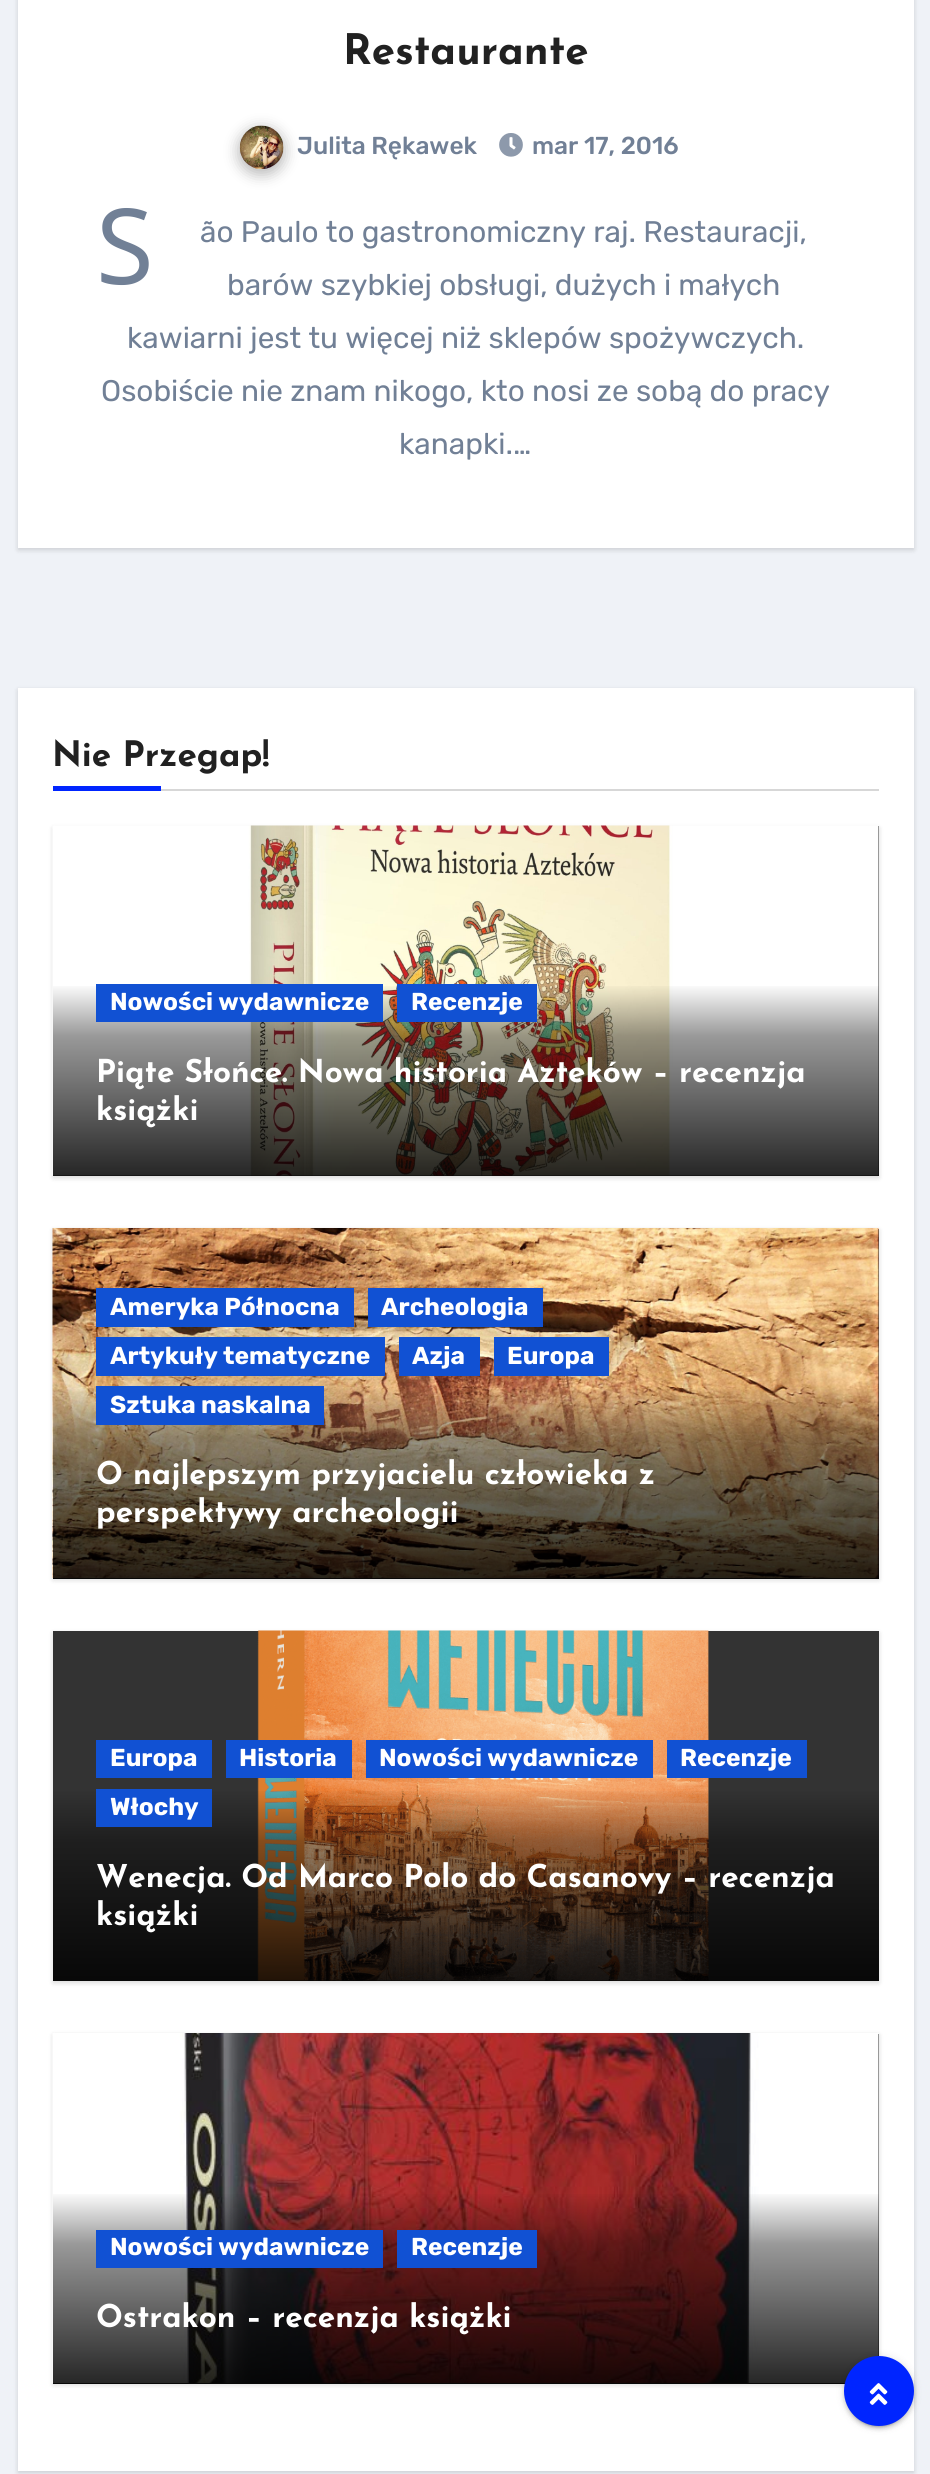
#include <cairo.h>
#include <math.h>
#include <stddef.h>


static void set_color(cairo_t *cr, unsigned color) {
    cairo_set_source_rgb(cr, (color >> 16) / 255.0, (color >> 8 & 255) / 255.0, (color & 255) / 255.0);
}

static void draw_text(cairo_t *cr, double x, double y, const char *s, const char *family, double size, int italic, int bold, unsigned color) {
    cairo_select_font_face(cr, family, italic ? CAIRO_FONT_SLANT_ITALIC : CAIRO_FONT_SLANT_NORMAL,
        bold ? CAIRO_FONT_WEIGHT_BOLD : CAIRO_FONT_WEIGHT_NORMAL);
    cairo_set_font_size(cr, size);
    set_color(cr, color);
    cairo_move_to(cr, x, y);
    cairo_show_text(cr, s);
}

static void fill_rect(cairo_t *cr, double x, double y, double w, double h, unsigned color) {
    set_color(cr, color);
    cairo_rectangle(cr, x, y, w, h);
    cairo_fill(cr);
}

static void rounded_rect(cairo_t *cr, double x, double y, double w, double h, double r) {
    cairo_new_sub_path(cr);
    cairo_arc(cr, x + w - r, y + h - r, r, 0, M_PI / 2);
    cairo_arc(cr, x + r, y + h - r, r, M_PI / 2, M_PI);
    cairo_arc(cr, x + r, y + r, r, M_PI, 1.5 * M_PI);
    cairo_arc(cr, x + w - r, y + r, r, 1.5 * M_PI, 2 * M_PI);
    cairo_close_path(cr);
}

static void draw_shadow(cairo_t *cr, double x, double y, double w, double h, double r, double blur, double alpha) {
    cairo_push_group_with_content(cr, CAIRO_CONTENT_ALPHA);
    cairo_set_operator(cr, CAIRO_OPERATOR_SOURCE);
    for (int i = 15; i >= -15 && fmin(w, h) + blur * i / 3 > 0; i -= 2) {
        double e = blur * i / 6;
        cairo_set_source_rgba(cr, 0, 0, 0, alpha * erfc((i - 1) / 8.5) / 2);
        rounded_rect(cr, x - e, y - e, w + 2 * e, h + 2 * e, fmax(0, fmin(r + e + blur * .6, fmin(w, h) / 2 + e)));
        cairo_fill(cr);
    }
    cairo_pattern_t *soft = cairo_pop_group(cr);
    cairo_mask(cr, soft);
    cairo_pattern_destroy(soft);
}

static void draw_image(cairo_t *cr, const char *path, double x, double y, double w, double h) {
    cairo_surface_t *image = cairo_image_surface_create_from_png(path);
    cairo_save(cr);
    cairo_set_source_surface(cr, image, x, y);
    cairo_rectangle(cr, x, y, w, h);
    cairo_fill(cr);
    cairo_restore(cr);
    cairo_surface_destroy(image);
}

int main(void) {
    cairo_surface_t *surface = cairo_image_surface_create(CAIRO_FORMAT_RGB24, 930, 2474);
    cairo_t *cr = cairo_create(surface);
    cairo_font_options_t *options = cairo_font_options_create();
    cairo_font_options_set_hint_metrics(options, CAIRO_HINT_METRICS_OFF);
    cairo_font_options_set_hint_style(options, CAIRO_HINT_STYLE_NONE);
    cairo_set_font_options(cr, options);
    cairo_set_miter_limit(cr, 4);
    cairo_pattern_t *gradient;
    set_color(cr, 0xEFF2F7);
    cairo_paint(cr);
    set_color(cr, 0x000000);
    draw_shadow(cr, 18, -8, 896, 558, 0, 2.5, 0.15);
    fill_rect(cr, 18, 0, 896, 548, 0xFFFFFF);
    draw_text(cr, 343, 64, "Restaurante", "Josefin Sans", 42, 0, 1, 0x212121);
    set_color(cr, 0x212121);
    draw_shadow(cr, 238, 128, 47, 47, 23.5, 7, 0.3);
    draw_image(cr, "assets/img1.png", 239, 125, 45, 45);
    draw_text(cr, 297, 154, "Julita Rękawek", "Rubik Medium", 24.5, 0, 0, 0x718096);
    draw_image(cr, "assets/img2.png", 499, 133, 24, 24);
    draw_text(cr, 532, 154, "mar 17, 2016", "Rubik Medium", 24.5, 0, 0, 0x718096);
    draw_text(cr, 96, 284, "S", "Noto Sans", 105, 0, 0, 0x718096);
    draw_text(cr, 200, 242, "ão Paulo to gastronomiczny raj. Restauracji,", "Rubik Light", 29.75, 0, 0, 0x718096);
    draw_text(cr, 227, 295, "barów szybkiej obsługi, dużych i małych", "Rubik Light", 29.75, 0, 0, 0x718096);
    draw_text(cr, 127, 348, "kawiarni jest tu więcej niż sklepów spożywczych.", "Rubik Light", 29.75, 0, 0, 0x718096);
    draw_text(cr, 101, 401, "Osobiście nie znam nikogo, kto nosi ze sobą do pracy", "Rubik Light", 29.75, 0, 0, 0x718096);
    draw_text(cr, 399, 454, "kanapki.…", "Rubik Light", 29.75, 0, 0, 0x718096);
    set_color(cr, 0x000000);
    draw_shadow(cr, 18, 690, 896, 1783, 0, 2.5, 0.15);
    fill_rect(cr, 18, 688, 896, 1783, 0xFFFFFF);
    fill_rect(cr, 161, 789, 718, 2, 0xD7D7D7);
    draw_text(cr, 52, 766, "Nie Przegap!", "Josefin Sans", 35, 0, 1, 0x212121);
    fill_rect(cr, 53, 786, 108, 5, 0x0025FF);
    set_color(cr, 0x000000);
    draw_shadow(cr, 53, 828, 826, 350, 0, 2.5, 0.15);
    fill_rect(cr, 53, 826, 826, 350, 0x333333);
    draw_image(cr, "assets/img3.png", 52, 825, 827, 351);
    gradient = cairo_pattern_create_linear(466, 826, 466, 1176);
    cairo_pattern_add_color_stop_rgba(gradient, 0, 0, 0, 0, 0);
    cairo_pattern_add_color_stop_rgba(gradient, 0.45, 0, 0, 0, 0);
    cairo_pattern_add_color_stop_rgba(gradient, 0.6, 0, 0, 0, 0.4);
    cairo_pattern_add_color_stop_rgba(gradient, 1, 0, 0, 0, 0.85);
    cairo_set_source(cr, gradient);
    cairo_pattern_destroy(gradient);
    cairo_rectangle(cr, 53, 986, 826, 190);
    cairo_fill(cr);
    fill_rect(cr, 96, 984, 287, 38, 0x1151D3);
    draw_text(cr, 110, 1010, "Nowości wydawnicze", "Rubik", 24.5, 0, 1, 0xFFFFFF);
    fill_rect(cr, 397, 984, 140, 38, 0x1151D3);
    draw_text(cr, 411, 1010, "Recenzje", "Rubik", 24.5, 0, 1, 0xFFFFFF);
    draw_text(cr, 96, 1082, "Piąte Słońce. Nowa historia Azteków – recenzja", "Josefin Sans", 31.5, 0, 1, 0xFFFFFF);
    draw_text(cr, 96, 1120, "książki", "Josefin Sans", 31.5, 0, 1, 0xFFFFFF);
    set_color(cr, 0x000000);
    draw_shadow(cr, 53, 1230, 826, 350, 0, 2.5, 0.15);
    fill_rect(cr, 53, 1229, 826, 350, 0x333333);
    draw_image(cr, "assets/img4.png", 52, 1228, 827, 350);
    fill_rect(cr, 96, 1288, 258, 39, 0x1151D3);
    draw_text(cr, 110, 1315, "Ameryka Północna", "Rubik", 24.5, 0, 1, 0xFFFFFF);
    fill_rect(cr, 368, 1288, 175, 39, 0x1151D3);
    draw_text(cr, 381, 1315, "Archeologia", "Rubik", 24.5, 0, 1, 0xFFFFFF);
    fill_rect(cr, 96, 1337, 289, 39, 0x1151D3);
    draw_text(cr, 110, 1364, "Artykuły tematyczne", "Rubik", 24.5, 0, 1, 0xFFFFFF);
    fill_rect(cr, 399, 1337, 81, 39, 0x1151D3);
    draw_text(cr, 412, 1364, "Azja", "Rubik", 24.5, 0, 1, 0xFFFFFF);
    fill_rect(cr, 494, 1337, 115, 39, 0x1151D3);
    draw_text(cr, 507, 1364, "Europa", "Rubik", 24.5, 0, 1, 0xFFFFFF);
    gradient = cairo_pattern_create_linear(466, 1229, 466, 1579);
    cairo_pattern_add_color_stop_rgba(gradient, 0, 0, 0, 0, 0);
    cairo_pattern_add_color_stop_rgba(gradient, 0.45, 0, 0, 0, 0);
    cairo_pattern_add_color_stop_rgba(gradient, 0.6, 0, 0, 0, 0.4);
    cairo_pattern_add_color_stop_rgba(gradient, 1, 0, 0, 0, 0.85);
    cairo_set_source(cr, gradient);
    cairo_pattern_destroy(gradient);
    cairo_rectangle(cr, 53, 1389, 826, 190);
    cairo_fill(cr);
    fill_rect(cr, 96, 1386, 228, 39, 0x1151D3);
    draw_text(cr, 110, 1413, "Sztuka naskalna", "Rubik", 24.5, 0, 1, 0xFFFFFF);
    draw_text(cr, 96, 1484, "O najlepszym przyjacielu człowieka z", "Josefin Sans", 31.5, 0, 1, 0xFFFFFF);
    draw_text(cr, 96, 1522, "perspektywy archeologii", "Josefin Sans", 31.5, 0, 1, 0xFFFFFF);
    set_color(cr, 0x000000);
    draw_shadow(cr, 53, 1633, 826, 350, 0, 2.5, 0.15);
    fill_rect(cr, 53, 1631, 826, 350, 0x333333);
    draw_image(cr, "assets/img5.png", 257, 1630, 452, 351);
    fill_rect(cr, 96, 1740, 116, 38, 0x1151D3);
    draw_text(cr, 110, 1766, "Europa", "Rubik", 24.5, 0, 1, 0xFFFFFF);
    fill_rect(cr, 226, 1740, 126, 38, 0x1151D3);
    draw_text(cr, 239, 1766, "Historia", "Rubik", 24.5, 0, 1, 0xFFFFFF);
    fill_rect(cr, 366, 1740, 287, 38, 0x1151D3);
    draw_text(cr, 379, 1766, "Nowości wydawnicze", "Rubik", 24.5, 0, 1, 0xFFFFFF);
    fill_rect(cr, 667, 1740, 140, 38, 0x1151D3);
    draw_text(cr, 680, 1766, "Recenzje", "Rubik", 24.5, 0, 1, 0xFFFFFF);
    gradient = cairo_pattern_create_linear(466, 1631, 466, 1981);
    cairo_pattern_add_color_stop_rgba(gradient, 0, 0, 0, 0, 0);
    cairo_pattern_add_color_stop_rgba(gradient, 0.45, 0, 0, 0, 0);
    cairo_pattern_add_color_stop_rgba(gradient, 0.6, 0, 0, 0, 0.4);
    cairo_pattern_add_color_stop_rgba(gradient, 1, 0, 0, 0, 0.85);
    cairo_set_source(cr, gradient);
    cairo_pattern_destroy(gradient);
    cairo_rectangle(cr, 53, 1791, 826, 190);
    cairo_fill(cr);
    fill_rect(cr, 96, 1789, 116, 38, 0x1151D3);
    draw_text(cr, 110, 1815, "Włochy", "Rubik", 24.5, 0, 1, 0xFFFFFF);
    draw_text(cr, 96, 1887, "Wenecja. Od Marco Polo do Casanovy – recenzja", "Josefin Sans", 31.5, 0, 1, 0xFFFFFF);
    draw_text(cr, 96, 1925, "książki", "Josefin Sans", 31.5, 0, 1, 0xFFFFFF);
    set_color(cr, 0x000000);
    draw_shadow(cr, 53, 2035, 826, 350, 0, 2.5, 0.15);
    fill_rect(cr, 53, 2034, 826, 350, 0x333333);
    draw_image(cr, "assets/img6.png", 52, 2033, 827, 350);
    gradient = cairo_pattern_create_linear(466, 2034, 466, 2384);
    cairo_pattern_add_color_stop_rgba(gradient, 0, 0, 0, 0, 0);
    cairo_pattern_add_color_stop_rgba(gradient, 0.45, 0, 0, 0, 0);
    cairo_pattern_add_color_stop_rgba(gradient, 0.6, 0, 0, 0, 0.4);
    cairo_pattern_add_color_stop_rgba(gradient, 1, 0, 0, 0, 0.85);
    cairo_set_source(cr, gradient);
    cairo_pattern_destroy(gradient);
    cairo_rectangle(cr, 53, 2194, 826, 190);
    cairo_fill(cr);
    fill_rect(cr, 96, 2230, 287, 38, 0x1151D3);
    draw_text(cr, 110, 2255, "Nowości wydawnicze", "Rubik", 24.5, 0, 1, 0xFFFFFF);
    fill_rect(cr, 397, 2230, 140, 38, 0x1151D3);
    draw_text(cr, 411, 2255, "Recenzje", "Rubik", 24.5, 0, 1, 0xFFFFFF);
    draw_text(cr, 96, 2327, "Ostrakon – recenzja książki", "Josefin Sans", 31.5, 0, 1, 0xFFFFFF);
    set_color(cr, 0x000000);
    draw_shadow(cr, 844, 2357, 70, 70, 35, 4.5, 0.12);
    draw_shadow(cr, 847, 2364, 63, 63, 31.5, 1, 0.2);
    draw_shadow(cr, 844, 2359, 70, 70, 35, 2, 0.14);
    set_color(cr, 0x0025FF);
    cairo_arc(cr, 879, 2391, 33, 0, 2 * M_PI);
    cairo_fill_preserve(cr);
    cairo_set_line_width(cr, 4);
    cairo_stroke(cr);
    draw_image(cr, "assets/img7.png", 869, 2383, 19, 22);
    cairo_surface_write_to_png(surface, "output.png");
    cairo_font_options_destroy(options);
    cairo_destroy(cr);
    cairo_surface_destroy(surface);
    return 0;
}
